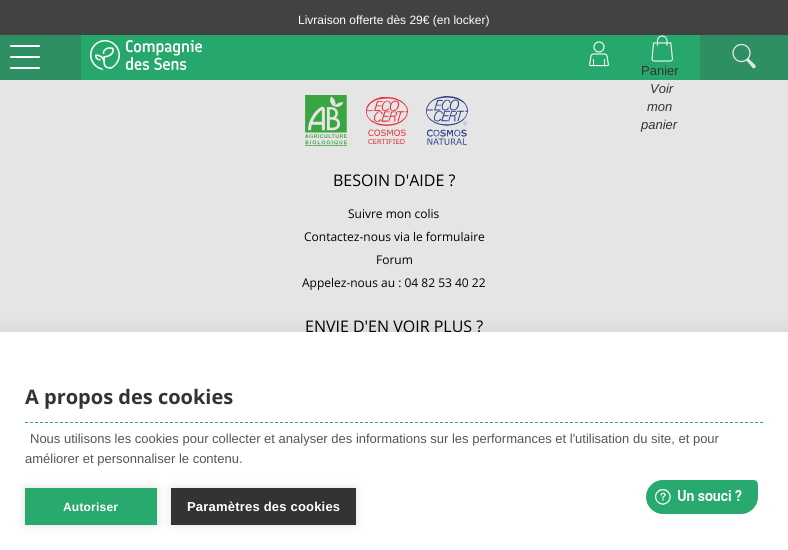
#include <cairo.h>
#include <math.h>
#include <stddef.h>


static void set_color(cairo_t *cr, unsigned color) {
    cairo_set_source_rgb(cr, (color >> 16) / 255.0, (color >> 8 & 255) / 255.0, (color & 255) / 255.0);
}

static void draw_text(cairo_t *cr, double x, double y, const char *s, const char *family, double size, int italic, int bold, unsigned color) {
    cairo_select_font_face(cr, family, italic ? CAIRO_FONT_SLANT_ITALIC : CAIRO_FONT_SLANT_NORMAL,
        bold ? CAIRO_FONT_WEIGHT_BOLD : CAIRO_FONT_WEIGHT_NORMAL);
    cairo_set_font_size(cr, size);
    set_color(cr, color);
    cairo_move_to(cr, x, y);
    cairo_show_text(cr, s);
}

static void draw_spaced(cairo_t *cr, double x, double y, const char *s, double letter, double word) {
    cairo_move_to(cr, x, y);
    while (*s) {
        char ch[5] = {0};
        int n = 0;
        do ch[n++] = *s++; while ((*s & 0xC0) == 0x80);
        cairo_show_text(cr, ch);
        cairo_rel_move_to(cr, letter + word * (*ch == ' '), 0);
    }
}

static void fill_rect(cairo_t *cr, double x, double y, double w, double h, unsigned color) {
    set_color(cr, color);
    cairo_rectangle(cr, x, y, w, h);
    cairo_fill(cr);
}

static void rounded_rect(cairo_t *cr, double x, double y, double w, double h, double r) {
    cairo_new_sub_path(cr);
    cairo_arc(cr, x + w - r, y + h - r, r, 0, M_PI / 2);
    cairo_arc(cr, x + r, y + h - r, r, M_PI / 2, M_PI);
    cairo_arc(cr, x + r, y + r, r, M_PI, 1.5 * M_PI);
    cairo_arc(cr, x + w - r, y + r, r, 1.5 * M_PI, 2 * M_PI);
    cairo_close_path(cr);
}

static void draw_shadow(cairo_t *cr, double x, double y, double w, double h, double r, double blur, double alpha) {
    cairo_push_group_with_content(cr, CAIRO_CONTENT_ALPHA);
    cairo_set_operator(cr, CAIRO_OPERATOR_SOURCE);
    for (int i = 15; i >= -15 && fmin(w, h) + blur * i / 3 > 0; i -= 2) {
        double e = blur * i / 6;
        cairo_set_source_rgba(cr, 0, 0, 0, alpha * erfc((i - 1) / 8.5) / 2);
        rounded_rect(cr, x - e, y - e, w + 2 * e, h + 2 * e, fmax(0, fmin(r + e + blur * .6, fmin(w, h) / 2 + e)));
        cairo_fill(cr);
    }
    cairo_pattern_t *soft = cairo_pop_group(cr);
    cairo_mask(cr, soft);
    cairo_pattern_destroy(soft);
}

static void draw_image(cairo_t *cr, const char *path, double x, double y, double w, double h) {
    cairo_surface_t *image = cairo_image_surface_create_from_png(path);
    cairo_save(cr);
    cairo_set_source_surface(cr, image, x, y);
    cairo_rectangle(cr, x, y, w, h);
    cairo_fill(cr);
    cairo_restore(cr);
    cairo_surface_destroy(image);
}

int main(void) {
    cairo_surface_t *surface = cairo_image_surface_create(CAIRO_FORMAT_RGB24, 788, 550);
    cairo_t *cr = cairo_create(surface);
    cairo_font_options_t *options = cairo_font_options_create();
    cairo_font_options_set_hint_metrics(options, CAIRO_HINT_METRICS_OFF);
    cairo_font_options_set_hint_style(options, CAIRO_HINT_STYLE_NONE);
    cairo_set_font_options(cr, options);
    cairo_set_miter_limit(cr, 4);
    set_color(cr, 0xE5E5E5);
    cairo_paint(cr);
    fill_rect(cr, 0, 0, 788, 35, 0x424242);
    draw_text(cr, 298, 24, "Livraison offerte dès 29€ (en locker)", "Liberation Sans", 12, 0, 0, 0xFFFFFF);
    fill_rect(cr, 0, 35, 788, 45, 0x2D8F62);
    set_color(cr, 0xFFFFFF);
    rounded_rect(cr, 10, 45, 30, 2, 1);
    cairo_fill(cr);
    rounded_rect(cr, 10, 56, 30, 2, 1);
    cairo_fill(cr);
    rounded_rect(cr, 10, 67, 30, 2, 1);
    cairo_fill(cr);
    fill_rect(cr, 81, 35, 619, 45, 0x26A86D);
    draw_image(cr, "assets/img1.png", 90, 40, 112, 30);
    draw_image(cr, "assets/img2.png", 589, 41, 20, 26);
    draw_image(cr, "assets/img3.png", 732, 43, 24, 26);
    draw_image(cr, "assets/img4.png", 651, 35, 22, 27);
    draw_text(cr, 641, 75, "Panier", "Liberation Sans", 13, 0, 0, 0x333333);
    draw_text(cr, 650, 93, "Voir", "Liberation Sans", 13, 1, 0, 0x333333);
    draw_text(cr, 647, 111, "mon", "Liberation Sans", 13, 1, 0, 0x333333);
    draw_text(cr, 641, 129, "panier", "Liberation Sans", 13, 1, 0, 0x333333);
    draw_image(cr, "assets/img5.png", 305, 95, 42, 51);
    draw_image(cr, "assets/img6.png", 366, 97, 42, 47);
    draw_image(cr, "assets/img7.png", 426, 96, 42, 49);
    draw_text(cr, 333, 186, "BESOIN D'AIDE ?", "Open Sans", 16, 0, 0, 0x000000);
    draw_text(cr, 348, 218, "Suivre mon colis", "Open Sans", 12, 0, 0, 0x000000);
    draw_text(cr, 304, 241, "Contactez-nous via le formulaire", "Open Sans", 12, 0, 0, 0x000000);
    draw_text(cr, 376, 264, "Forum", "Open Sans", 12, 0, 0, 0x000000);
    draw_text(cr, 302, 287, "Appelez-nous au : 04 82 53 40 22", "Open Sans", 12, 0, 0, 0x000000);
    draw_text(cr, 305, 332, "ENVIE D'EN VOIR PLUS ?", "Open Sans", 16, 0, 0, 0x000000);
    set_color(cr, 0x000000);
    draw_shadow(cr, 0, 332, 788, 218, 0, 10, 0.1);
    fill_rect(cr, 0, 332, 788, 218, 0xFFFFFF);
    cairo_new_path(cr);
    cairo_move_to(cr, 25, 422.5);
    cairo_line_to(cr, 763, 422.5);
    set_color(cr, 0x26A86D);
    cairo_set_line_width(cr, 1);
    cairo_set_dash(cr, (double[]){3, 2}, 2, 0);
    cairo_stroke(cr);
    draw_text(cr, 25, 404, "A propos des cookies", "Open Sans", 20, 0, 1, 0x333333);
    draw_text(cr, 30, 443, "Nous utilisons les cookies pour collecter et analyser des informations sur les performances et l'utilisation du site, et pour", "Liberation Sans", 13, 0, 0, 0x555555);
    draw_text(cr, 25, 463, "améliorer et personnaliser le contenu.", "Liberation Sans", 13, 0, 0, 0x555555);
    set_color(cr, 0x000000);
    draw_shadow(cr, 25, 488, 132, 37, 0, 5, 0.12);
    fill_rect(cr, 25, 488, 132, 37, 0x28A96D);
    cairo_select_font_face(cr, "Liberation Sans", CAIRO_FONT_SLANT_NORMAL, CAIRO_FONT_WEIGHT_BOLD);
    cairo_set_font_size(cr, 12);
    set_color(cr, 0xFFFFFF);
    draw_spaced(cr, 63, 511, "Autoriser", 0.2, 0);
    set_color(cr, 0x000000);
    draw_shadow(cr, 171, 488, 185, 37, 0, 5, 0.12);
    fill_rect(cr, 171, 488, 185, 37, 0x333333);
    cairo_set_font_size(cr, 13);
    set_color(cr, 0xFFFFFF);
    draw_spaced(cr, 187, 511, "Paramètres des cookies", 0.2, 0);
    draw_image(cr, "assets/img8.png", 646, 480, 112, 34);
    cairo_surface_write_to_png(surface, "output.png");
    cairo_font_options_destroy(options);
    cairo_destroy(cr);
    cairo_surface_destroy(surface);
    return 0;
}
